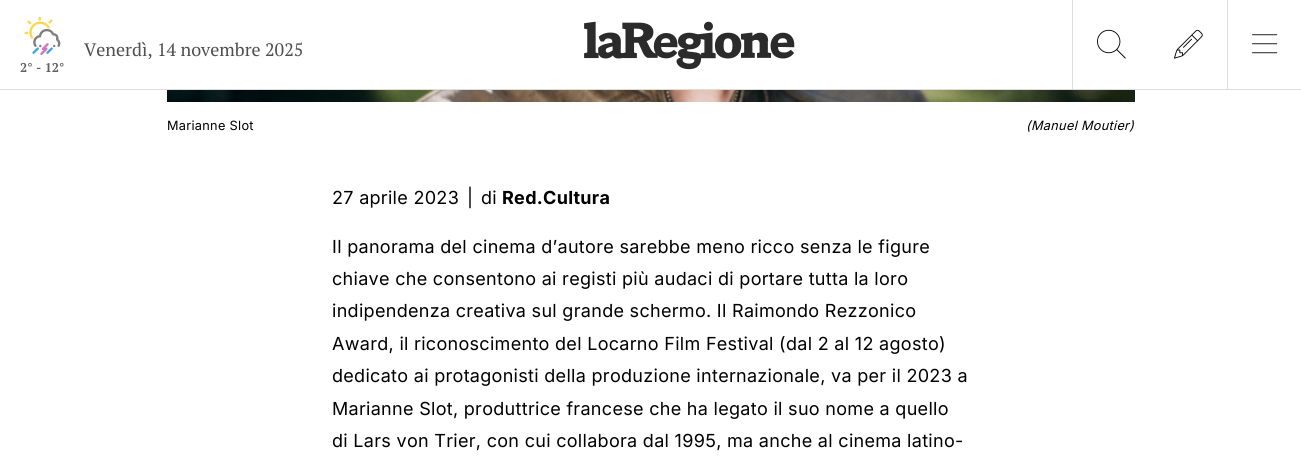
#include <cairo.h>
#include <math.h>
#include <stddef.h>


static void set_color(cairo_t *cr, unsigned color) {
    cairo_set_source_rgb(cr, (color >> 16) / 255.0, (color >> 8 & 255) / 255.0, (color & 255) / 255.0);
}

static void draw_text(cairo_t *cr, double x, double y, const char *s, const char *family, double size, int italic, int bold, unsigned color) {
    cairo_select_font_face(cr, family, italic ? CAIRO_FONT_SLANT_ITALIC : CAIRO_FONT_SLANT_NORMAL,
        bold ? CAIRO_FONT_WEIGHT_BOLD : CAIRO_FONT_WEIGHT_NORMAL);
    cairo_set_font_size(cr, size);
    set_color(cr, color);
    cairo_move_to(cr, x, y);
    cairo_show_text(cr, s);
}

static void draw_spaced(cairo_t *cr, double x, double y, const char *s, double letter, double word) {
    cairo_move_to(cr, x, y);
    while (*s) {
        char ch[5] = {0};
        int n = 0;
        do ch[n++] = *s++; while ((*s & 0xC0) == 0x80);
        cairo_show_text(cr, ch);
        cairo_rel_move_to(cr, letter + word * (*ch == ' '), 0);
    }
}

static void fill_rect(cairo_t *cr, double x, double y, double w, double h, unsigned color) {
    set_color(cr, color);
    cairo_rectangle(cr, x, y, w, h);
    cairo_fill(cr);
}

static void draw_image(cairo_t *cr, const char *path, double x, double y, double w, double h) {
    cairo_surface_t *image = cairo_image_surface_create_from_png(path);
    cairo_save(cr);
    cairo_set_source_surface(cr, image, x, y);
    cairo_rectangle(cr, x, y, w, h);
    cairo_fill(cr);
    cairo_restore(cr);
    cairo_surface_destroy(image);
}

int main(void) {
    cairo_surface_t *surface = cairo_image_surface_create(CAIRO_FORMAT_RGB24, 1301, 457);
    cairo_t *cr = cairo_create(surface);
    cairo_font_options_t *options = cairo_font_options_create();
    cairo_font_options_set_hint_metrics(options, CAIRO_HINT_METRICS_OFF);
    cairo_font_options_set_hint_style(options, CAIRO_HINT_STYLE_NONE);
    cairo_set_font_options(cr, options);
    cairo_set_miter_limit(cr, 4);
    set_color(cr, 0xFFFFFF);
    cairo_paint(cr);
    fill_rect(cr, 0, 89, 1301, 1, 0xDDDDDD);
    draw_text(cr, 84, 56, "Venerdì, 14 novembre 2025", "PT Serif", 18, 0, 0, 0x4F4F4F);
    draw_image(cr, "assets/img1.png", 24, 16, 37, 39);
    draw_text(cr, 20, 72, "2° - 12°", "PT Serif", 12.75, 0, 1, 0x616161);
    draw_image(cr, "assets/img2.png", 584, 21, 211, 49);
    fill_rect(cr, 1072, 0, 1, 90, 0xDDDDDD);
    draw_image(cr, "assets/img3.png", 1097, 29, 29, 30);
    draw_image(cr, "assets/img4.png", 1174, 29, 29, 30);
    fill_rect(cr, 1227, 0, 1, 90, 0xDDDDDD);
    draw_image(cr, "assets/img5.png", 1252, 34, 26, 20);
    draw_image(cr, "assets/img6.png", 167, 90, 968, 12);
    cairo_select_font_face(cr, "Inter", CAIRO_FONT_SLANT_NORMAL, CAIRO_FONT_WEIGHT_NORMAL);
    set_color(cr, 0x000000);
    draw_spaced(cr, 167, 130, "Marianne Slot", 0.3, 0);
    cairo_select_font_face(cr, "Inter", CAIRO_FONT_SLANT_ITALIC, CAIRO_FONT_WEIGHT_NORMAL);
    draw_spaced(cr, 1026, 130, "(Manuel Moutier)", 0.3, 0);
    cairo_select_font_face(cr, "Inter", CAIRO_FONT_SLANT_NORMAL, CAIRO_FONT_WEIGHT_NORMAL);
    cairo_set_font_size(cr, 18);
    draw_spaced(cr, 332, 204, "27 aprile 2023", 0.3, 0);
    draw_spaced(cr, 467, 204, "|", 0.3, 0);
    draw_spaced(cr, 481, 204, "di", 0.3, 0);
    cairo_select_font_face(cr, "Inter", CAIRO_FONT_SLANT_NORMAL, CAIRO_FONT_WEIGHT_BOLD);
    draw_spaced(cr, 502, 204, "Red.Cultura", 0.3, 0);
    cairo_select_font_face(cr, "Inter", CAIRO_FONT_SLANT_NORMAL, CAIRO_FONT_WEIGHT_NORMAL);
    draw_spaced(cr, 332, 253, "Il panorama del cinema d’autore sarebbe meno ricco senza le figure", 0.3, 0);
    draw_spaced(cr, 332, 285, "chiave che consentono ai registi più audaci di portare tutta la loro", 0.3, 0);
    draw_spaced(cr, 332, 317, "indipendenza creativa sul grande schermo. Il Raimondo Rezzonico", 0.3, 0);
    draw_spaced(cr, 332, 350, "Award, il riconoscimento del Locarno Film Festival (dal 2 al 12 agosto)", 0.3, 0);
    draw_spaced(cr, 332, 382, "dedicato ai protagonisti della produzione internazionale, va per il 2023 a", 0.3, 0);
    draw_spaced(cr, 332, 415, "Marianne Slot, produttrice francese che ha legato il suo nome a quello", 0.3, 0);
    draw_spaced(cr, 332, 447, "di Lars von Trier, con cui collabora dal 1995, ma anche al cinema latino-", 0.3, 0);
    cairo_surface_write_to_png(surface, "output.png");
    cairo_font_options_destroy(options);
    cairo_destroy(cr);
    cairo_surface_destroy(surface);
    return 0;
}
